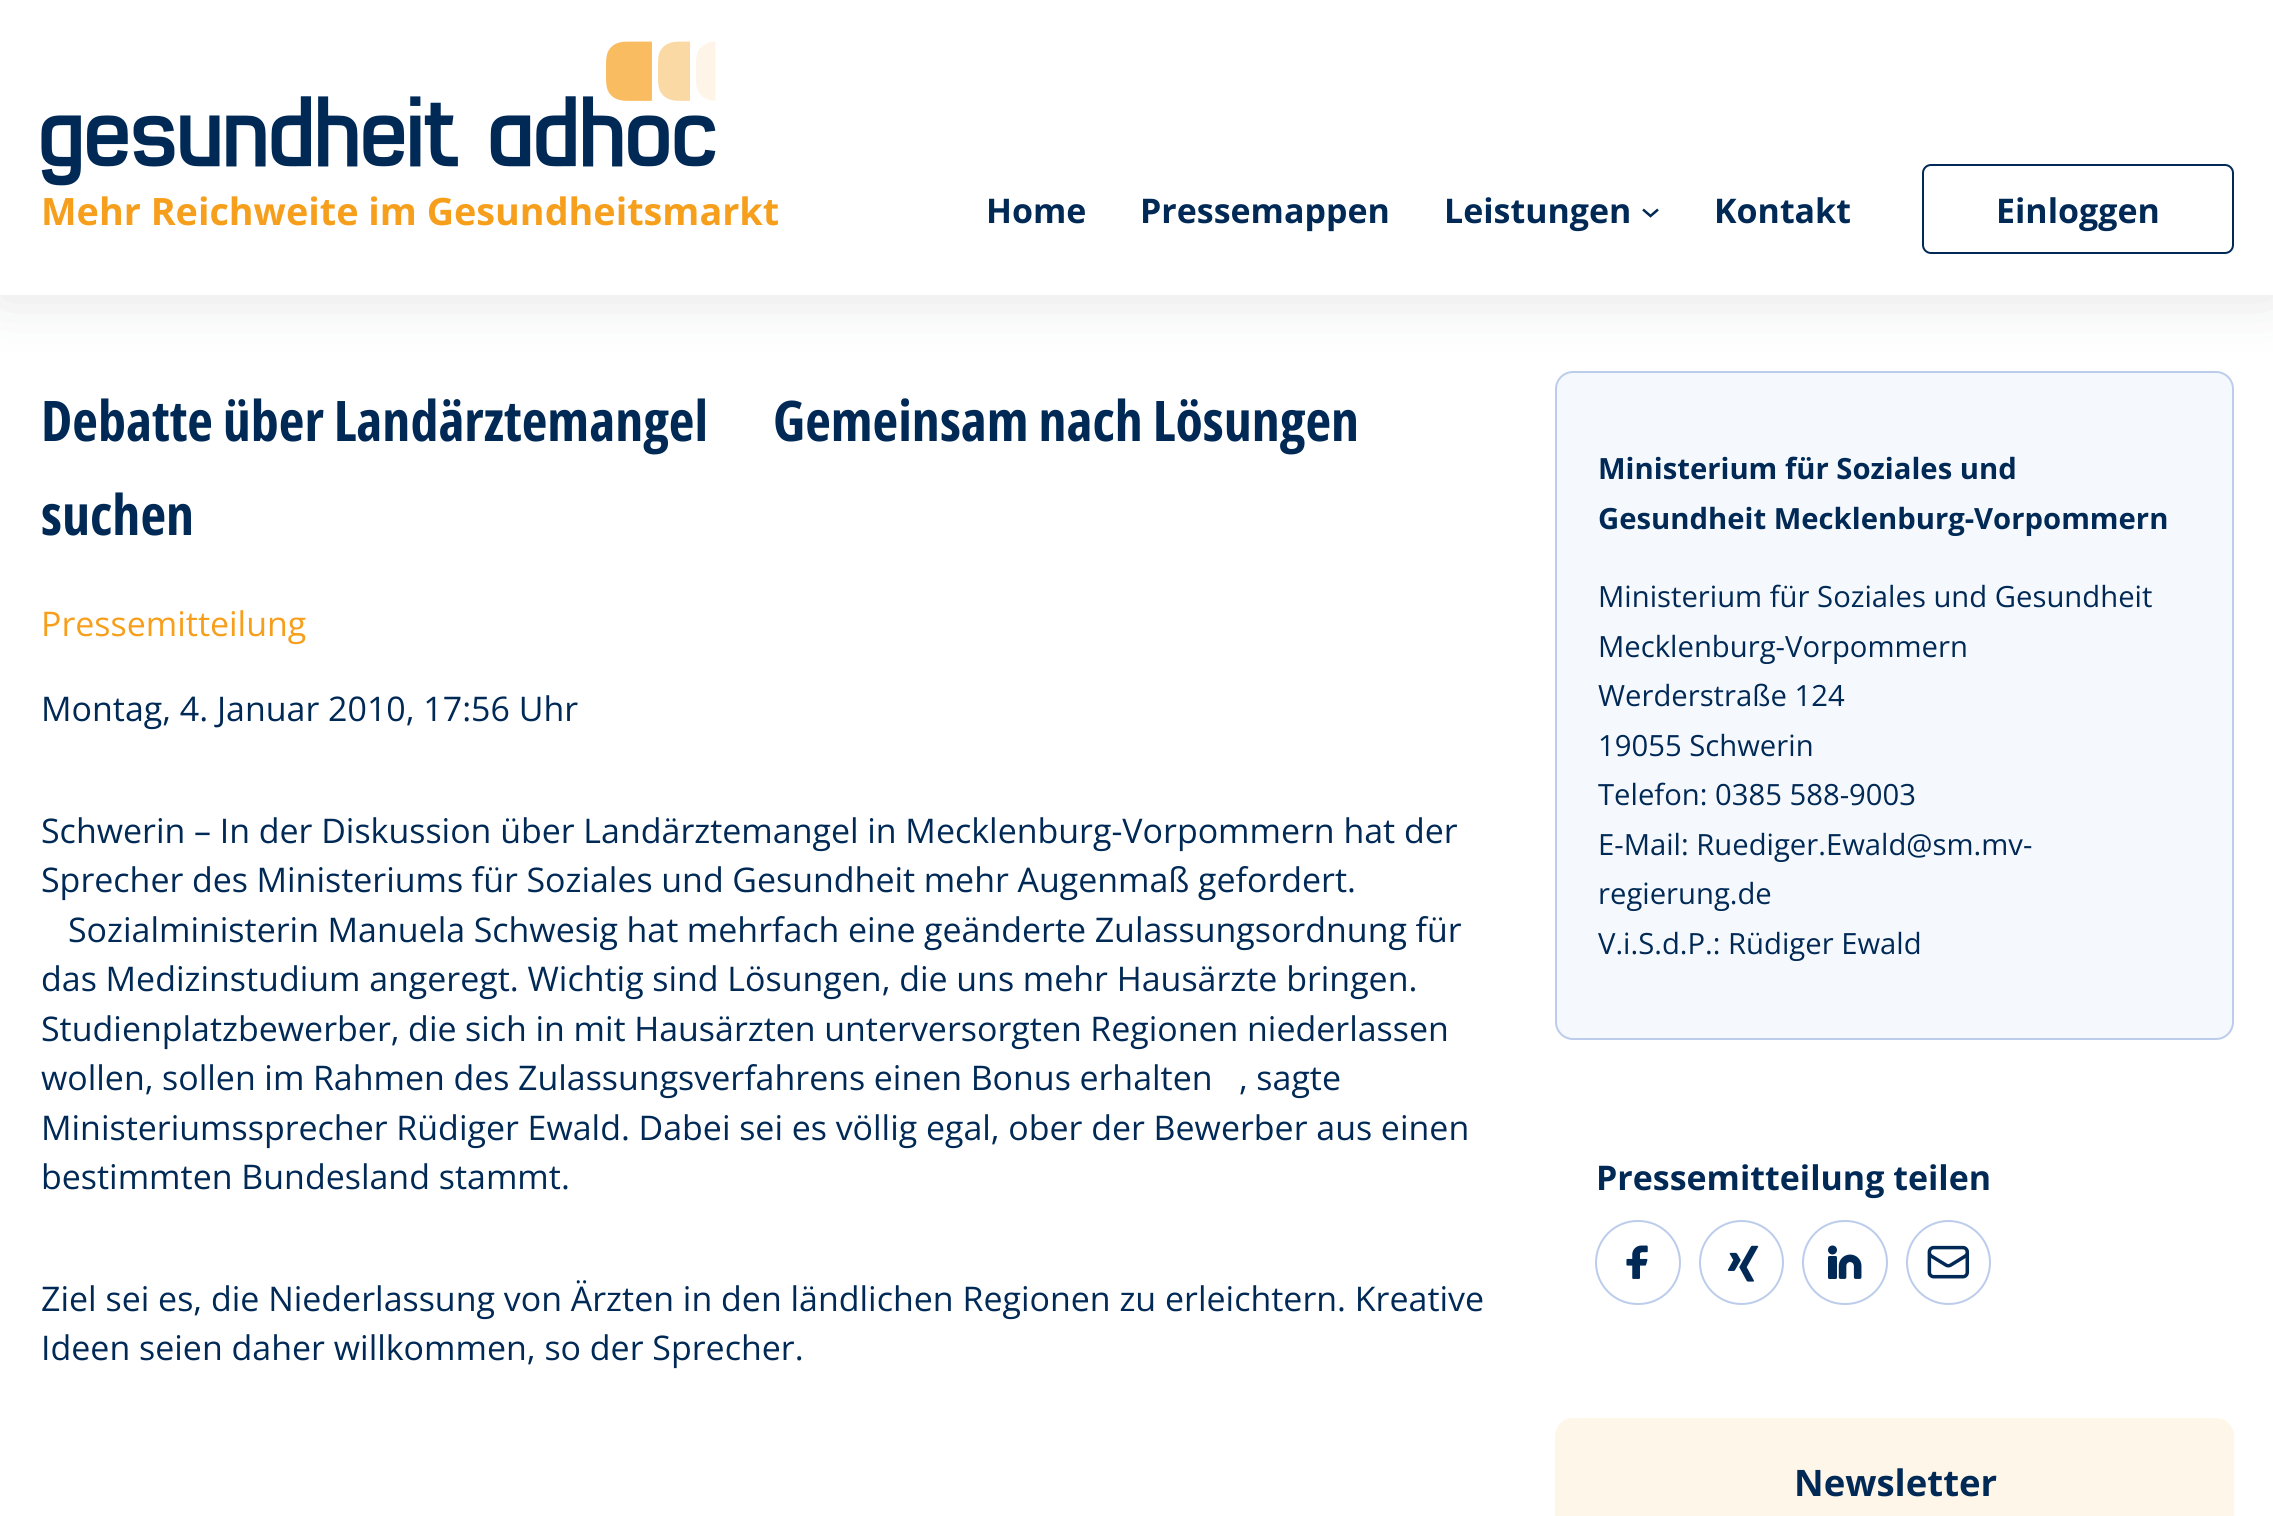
#include <cairo.h>
#include <math.h>
#include <stddef.h>


static void set_color(cairo_t *cr, unsigned color) {
    cairo_set_source_rgb(cr, (color >> 16) / 255.0, (color >> 8 & 255) / 255.0, (color & 255) / 255.0);
}

static void draw_text(cairo_t *cr, double x, double y, const char *s, const char *family, double size, int italic, int bold, unsigned color) {
    cairo_select_font_face(cr, family, italic ? CAIRO_FONT_SLANT_ITALIC : CAIRO_FONT_SLANT_NORMAL,
        bold ? CAIRO_FONT_WEIGHT_BOLD : CAIRO_FONT_WEIGHT_NORMAL);
    cairo_set_font_size(cr, size);
    set_color(cr, color);
    cairo_move_to(cr, x, y);
    cairo_show_text(cr, s);
}

static void draw_spaced(cairo_t *cr, double x, double y, const char *s, double letter, double word) {
    cairo_move_to(cr, x, y);
    while (*s) {
        char ch[5] = {0};
        int n = 0;
        do ch[n++] = *s++; while ((*s & 0xC0) == 0x80);
        cairo_show_text(cr, ch);
        cairo_rel_move_to(cr, letter + word * (*ch == ' '), 0);
    }
}

static void fill_rect(cairo_t *cr, double x, double y, double w, double h, unsigned color) {
    set_color(cr, color);
    cairo_rectangle(cr, x, y, w, h);
    cairo_fill(cr);
}

static void rounded_rect(cairo_t *cr, double x, double y, double w, double h, double r) {
    cairo_new_sub_path(cr);
    cairo_arc(cr, x + w - r, y + h - r, r, 0, M_PI / 2);
    cairo_arc(cr, x + r, y + h - r, r, M_PI / 2, M_PI);
    cairo_arc(cr, x + r, y + r, r, M_PI, 1.5 * M_PI);
    cairo_arc(cr, x + w - r, y + r, r, 1.5 * M_PI, 2 * M_PI);
    cairo_close_path(cr);
}

static void draw_shadow(cairo_t *cr, double x, double y, double w, double h, double r, double blur, double alpha) {
    cairo_push_group_with_content(cr, CAIRO_CONTENT_ALPHA);
    cairo_set_operator(cr, CAIRO_OPERATOR_SOURCE);
    for (int i = 15; i >= -15 && fmin(w, h) + blur * i / 3 > 0; i -= 2) {
        double e = blur * i / 6;
        cairo_set_source_rgba(cr, 0, 0, 0, alpha * erfc((i - 1) / 8.5) / 2);
        rounded_rect(cr, x - e, y - e, w + 2 * e, h + 2 * e, fmax(0, fmin(r + e + blur * .6, fmin(w, h) / 2 + e)));
        cairo_fill(cr);
    }
    cairo_pattern_t *soft = cairo_pop_group(cr);
    cairo_mask(cr, soft);
    cairo_pattern_destroy(soft);
}

static void draw_image(cairo_t *cr, const char *path, double x, double y, double w, double h) {
    cairo_surface_t *image = cairo_image_surface_create_from_png(path);
    cairo_save(cr);
    cairo_set_source_surface(cr, image, x, y);
    cairo_rectangle(cr, x, y, w, h);
    cairo_fill(cr);
    cairo_restore(cr);
    cairo_surface_destroy(image);
}

int main(void) {
    cairo_surface_t *surface = cairo_image_surface_create(CAIRO_FORMAT_RGB24, 2273, 1516);
    cairo_t *cr = cairo_create(surface);
    cairo_font_options_t *options = cairo_font_options_create();
    cairo_font_options_set_hint_metrics(options, CAIRO_HINT_METRICS_OFF);
    cairo_font_options_set_hint_style(options, CAIRO_HINT_STYLE_NONE);
    cairo_set_font_options(cr, options);
    cairo_set_miter_limit(cr, 4);
    set_color(cr, 0xFFFFFF);
    cairo_paint(cr);
    set_color(cr, 0xF5F8FC);
    rounded_rect(cr, 1556, 372, 677, 667, 17);
    cairo_fill_preserve(cr);
    set_color(cr, 0xBCCCEB);
    cairo_stroke(cr);
    set_color(cr, 0x29323C);
    draw_shadow(cr, 0, 5, 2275, 294, 0, 29, 0.13);
    fill_rect(cr, 0, 0, 2273, 295, 0xFFFFFF);
    draw_image(cr, "assets/img1.png", 41, 41, 675, 145);
    draw_text(cr, 41, 225, "Mehr Reichweite im Gesundheitsmarkt", "Open Sans", 37.75, 0, 1, 0xF69F1D);
    draw_text(cr, 986, 223, "Home", "Open Sans", 33.95, 0, 1, 0x002956);
    draw_text(cr, 1140, 223, "Pressemappen", "Open Sans", 33.95, 0, 1, 0x002956);
    draw_text(cr, 1444, 223, "Leistungen", "Open Sans", 33.95, 0, 1, 0x002956);
    cairo_new_path(cr);
    cairo_move_to(cr, 1643, 209.5);
    cairo_line_to(cr, 1650.5, 216);
    cairo_line_to(cr, 1658, 209.5);
    cairo_set_line_width(cr, 2.5);
    cairo_stroke(cr);
    draw_text(cr, 1714, 223, "Kontakt", "Open Sans", 33.95, 0, 1, 0x002956);
    rounded_rect(cr, 1923, 165, 310, 88, 8);
    cairo_set_line_width(cr, 2);
    cairo_stroke(cr);
    draw_text(cr, 1996, 223, "Einloggen", "Open Sans", 33.95, 0, 1, 0x002956);
    cairo_select_font_face(cr, "Open Sans Condensed", CAIRO_FONT_SLANT_NORMAL, CAIRO_FONT_WEIGHT_BOLD);
    cairo_set_font_size(cr, 56);
    draw_spaced(cr, 41, 441, "Debatte über Landärztemangel", 0, -0.25);
    draw_spaced(cr, 773, 441, "Gemeinsam nach Lösungen", 0, -0.25);
    draw_text(cr, 41, 535, "suchen", "Open Sans Condensed", 56, 0, 1, 0x002956);
    draw_text(cr, 41, 636, "Pressemitteilung", "Open Sans", 33.95, 0, 0, 0xF69F1D);
    draw_text(cr, 41, 721, "Montag, 4. Januar 2010, 17:56 Uhr", "Open Sans", 33.95, 0, 0, 0x002956);
    draw_spaced(cr, 41, 843, "Schwerin – In der Diskussion über Landärztemangel in Mecklenburg-Vorpommern hat der", 0, -0.1);
    draw_spaced(cr, 41, 892, "Sprecher des Ministeriums für Soziales und Gesundheit mehr Augenmaß gefordert.", 0, -0.25);
    draw_spaced(cr, 68, 942, "Sozialministerin Manuela Schwesig hat mehrfach eine geänderte Zulassungsordnung für", 0, -0.25);
    draw_spaced(cr, 41, 991, "das Medizinstudium angeregt. Wichtig sind Lösungen, die uns mehr Hausärzte bringen.", 0, -0.1);
    draw_spaced(cr, 41, 1041, "Studienplatzbewerber, die sich in mit Hausärzten unterversorgten Regionen niederlassen", 0, -0.25);
    draw_spaced(cr, 41, 1090, "wollen, sollen im Rahmen des Zulassungsverfahrens einen Bonus erhalten", 0, -0.25);
    draw_spaced(cr, 1239, 1090, ", sagte", 0, -0.25);
    draw_spaced(cr, 41, 1140, "Ministeriumssprecher Rüdiger Ewald. Dabei sei es völlig egal, ober der Bewerber aus einen", 0, -0.1);
    draw_text(cr, 41, 1189, "bestimmten Bundesland stammt.", "Open Sans", 33.95, 0, 0, 0x002956);
    draw_text(cr, 41, 1311, "Ziel sei es, die Niederlassung von Ärzten in den ländlichen Regionen zu erleichtern. Kreative", "Open Sans", 33.95, 0, 0, 0x002956);
    draw_text(cr, 41, 1360, "Ideen seien daher willkommen, so der Sprecher.", "Open Sans", 33.95, 0, 0, 0x002956);
    draw_text(cr, 1598, 479, "Ministerium für Soziales und", "Open Sans", 29.25, 0, 1, 0x002956);
    draw_text(cr, 1598, 529, "Gesundheit Mecklenburg-Vorpommern", "Open Sans", 29.25, 0, 1, 0x002956);
    draw_text(cr, 1598, 607, "Ministerium für Soziales und Gesundheit", "Open Sans", 29.25, 0, 0, 0x002956);
    draw_text(cr, 1598, 657, "Mecklenburg-Vorpommern", "Open Sans", 29.25, 0, 0, 0x002956);
    draw_text(cr, 1598, 706, "Werderstraße 124", "Open Sans", 29.25, 0, 0, 0x002956);
    draw_text(cr, 1598, 756, "19055 Schwerin", "Open Sans", 29.25, 0, 0, 0x002956);
    draw_text(cr, 1598, 805, "Telefon: 0385 588-9003", "Open Sans", 29.25, 0, 0, 0x002956);
    draw_text(cr, 1598, 855, "E-Mail: Ruediger.Ewald@sm.mv-", "Open Sans", 29.25, 0, 0, 0x002956);
    draw_text(cr, 1598, 904, "regierung.de", "Open Sans", 29.25, 0, 0, 0x002956);
    draw_text(cr, 1598, 954, "V.i.S.d.P.: Rüdiger Ewald", "Open Sans", 29.25, 0, 0, 0x002956);
    draw_text(cr, 1596, 1190, "Pressemitteilung teilen", "Open Sans", 33.95, 0, 1, 0x002956);
    rounded_rect(cr, 1596, 1221, 84, 83, 41.5);
    set_color(cr, 0xBCCCEB);
    cairo_stroke(cr);
    draw_image(cr, "assets/img2.png", 1626, 1245, 22, 34);
    cairo_arc(cr, 1741.5, 1262.5, 41.5, 0, 2 * M_PI);
    cairo_stroke(cr);
    draw_image(cr, "assets/img3.png", 1727, 1245, 32, 37);
    rounded_rect(cr, 1803, 1221, 84, 83, 41.5);
    cairo_stroke(cr);
    draw_image(cr, "assets/img4.png", 1828, 1245, 34, 34);
    cairo_arc(cr, 1948.5, 1262.5, 41.5, 0, 2 * M_PI);
    cairo_stroke(cr);
    draw_image(cr, "assets/img5.png", 1927, 1245, 43, 34);
    set_color(cr, 0xFEF6E8);
    rounded_rect(cr, 1555, 1418, 679, 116, 18);
    cairo_fill(cr);
    draw_text(cr, 1794, 1496, "Newsletter", "Open Sans", 36.5, 0, 1, 0x002956);
    cairo_surface_write_to_png(surface, "output.png");
    cairo_font_options_destroy(options);
    cairo_destroy(cr);
    cairo_surface_destroy(surface);
    return 0;
}
